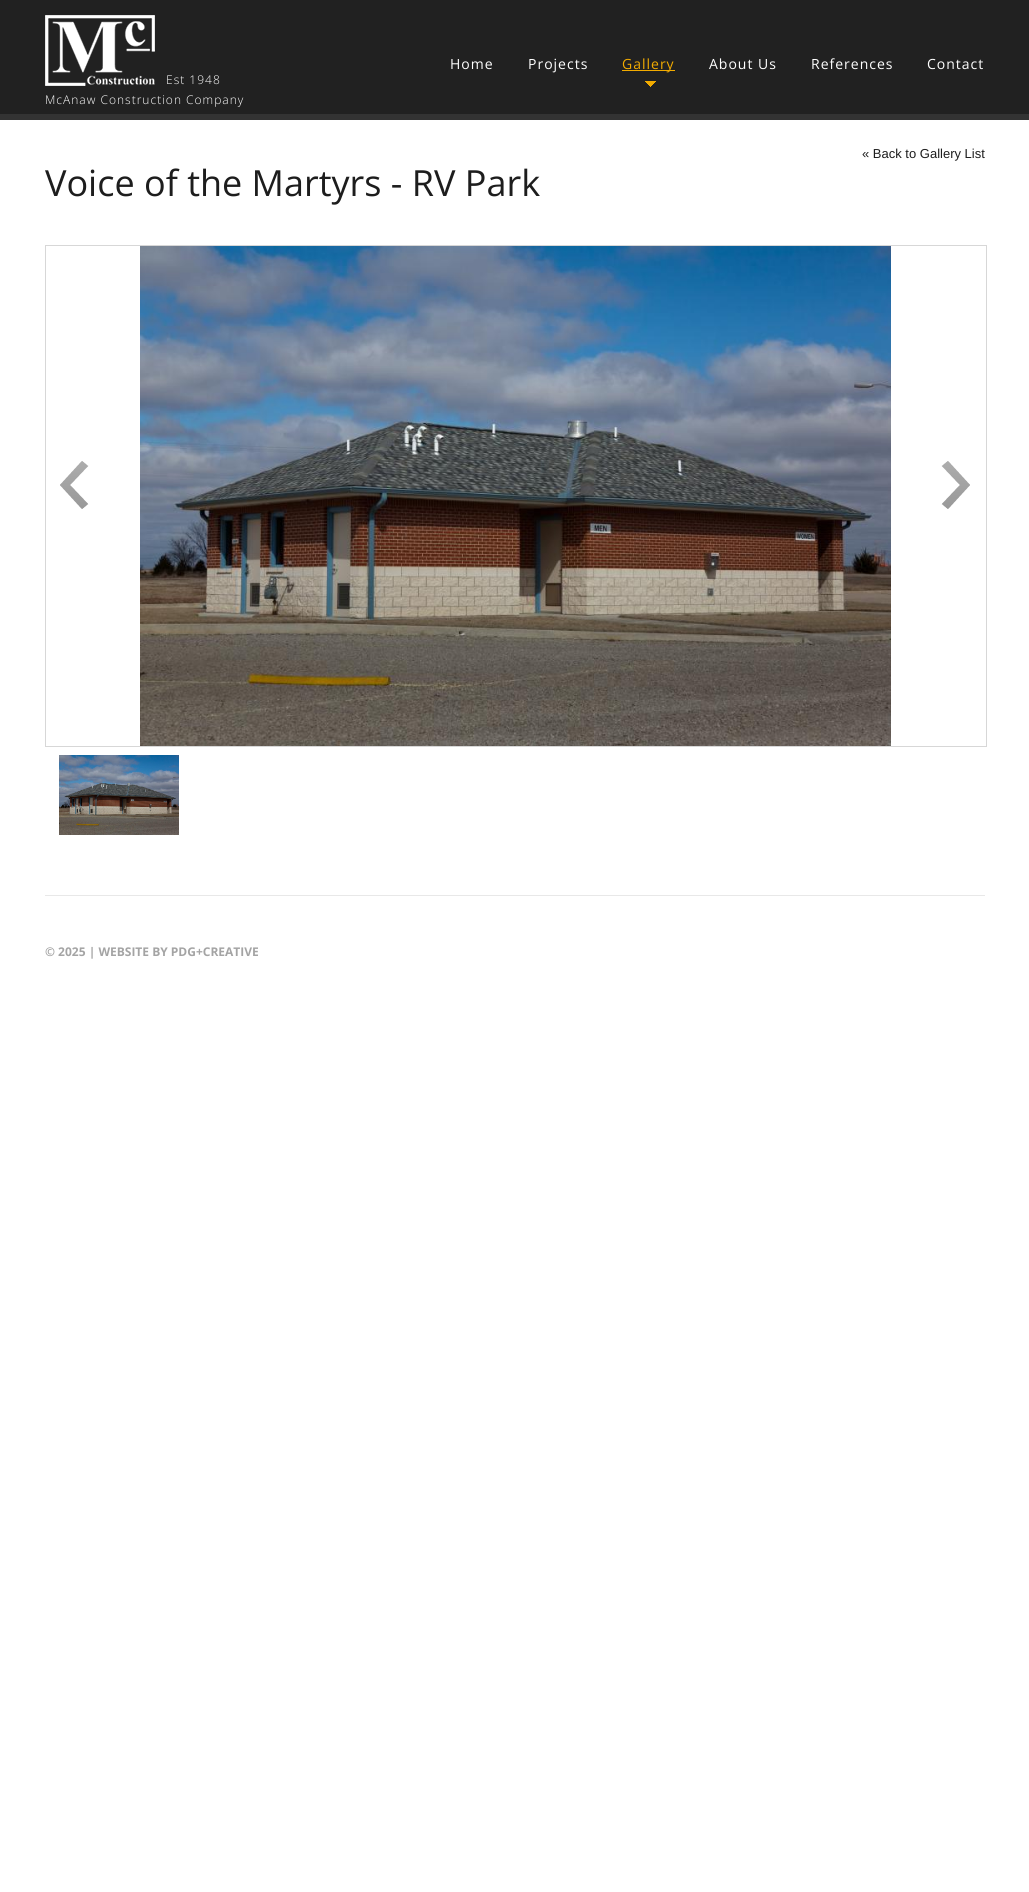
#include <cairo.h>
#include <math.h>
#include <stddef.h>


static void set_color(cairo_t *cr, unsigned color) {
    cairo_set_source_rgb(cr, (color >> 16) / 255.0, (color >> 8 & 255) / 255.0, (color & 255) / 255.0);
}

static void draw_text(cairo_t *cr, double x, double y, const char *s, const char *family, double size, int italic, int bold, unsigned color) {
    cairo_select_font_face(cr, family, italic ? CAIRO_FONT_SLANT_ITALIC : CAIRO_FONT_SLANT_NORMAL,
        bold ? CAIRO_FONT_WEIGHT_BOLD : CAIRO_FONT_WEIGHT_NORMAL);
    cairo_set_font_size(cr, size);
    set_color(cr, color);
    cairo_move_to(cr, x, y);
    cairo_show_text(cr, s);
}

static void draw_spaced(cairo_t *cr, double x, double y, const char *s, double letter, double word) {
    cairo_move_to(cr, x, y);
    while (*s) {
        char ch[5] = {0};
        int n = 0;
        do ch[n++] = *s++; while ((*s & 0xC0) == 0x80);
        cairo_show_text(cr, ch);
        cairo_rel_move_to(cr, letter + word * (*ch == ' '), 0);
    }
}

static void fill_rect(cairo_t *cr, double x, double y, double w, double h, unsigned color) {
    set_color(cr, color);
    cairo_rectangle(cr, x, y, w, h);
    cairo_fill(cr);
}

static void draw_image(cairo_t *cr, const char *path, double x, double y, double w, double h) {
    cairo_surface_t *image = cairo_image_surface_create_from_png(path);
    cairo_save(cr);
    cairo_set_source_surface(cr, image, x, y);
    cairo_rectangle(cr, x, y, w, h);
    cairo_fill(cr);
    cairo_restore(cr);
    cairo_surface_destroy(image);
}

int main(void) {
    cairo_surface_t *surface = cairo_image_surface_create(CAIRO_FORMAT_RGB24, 1029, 1892);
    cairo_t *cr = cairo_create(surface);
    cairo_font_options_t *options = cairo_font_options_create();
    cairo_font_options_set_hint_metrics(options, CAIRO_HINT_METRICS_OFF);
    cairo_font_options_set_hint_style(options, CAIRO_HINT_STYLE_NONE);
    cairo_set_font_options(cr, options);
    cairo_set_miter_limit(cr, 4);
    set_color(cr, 0xFFFFFF);
    cairo_paint(cr);
    fill_rect(cr, 0, 0, 1029, 114, 0x212121);
    fill_rect(cr, 0, 114, 1029, 6, 0x333333);
    cairo_select_font_face(cr, "Open Sans", CAIRO_FONT_SLANT_NORMAL, CAIRO_FONT_WEIGHT_NORMAL);
    cairo_set_font_size(cr, 14);
    set_color(cr, 0xFFFFFF);
    draw_spaced(cr, 450, 69, "Home", 1, 0);
    draw_spaced(cr, 528, 69, "Projects", 1, 0);
    fill_rect(cr, 622, 70, 53, 1, 0xF2AB00);
    draw_spaced(cr, 622, 69, "Gallery", 1, 0);
    draw_image(cr, "assets/img1.png", 645, 81, 11, 6);
    set_color(cr, 0xFFFFFF);
    draw_spaced(cr, 709, 69, "About Us", 1, 0);
    draw_spaced(cr, 811, 69, "References", 1, 0);
    draw_spaced(cr, 927, 69, "Contact", 1, 0);
    draw_image(cr, "assets/img2.png", 45, 15, 110, 71);
    cairo_select_font_face(cr, "Open Sans Light", CAIRO_FONT_SLANT_NORMAL, CAIRO_FONT_WEIGHT_NORMAL);
    cairo_set_font_size(cr, 12);
    draw_spaced(cr, 166, 84, "Est 1948", 1, 0);
    draw_spaced(cr, 45, 104, "McAnaw Construction Company", 1, 0);
    draw_text(cr, 862, 158, "« Back to Gallery List", "Liberation Sans", 13, 0, 0, 0x1D1D1D);
    draw_text(cr, 45, 196, "Voice of the Martyrs - RV Park", "Open Sans", 36, 0, 0, 0x1D1D1D);
    cairo_rectangle(cr, 45.5, 245.5, 941, 501);
    set_color(cr, 0xD7D7D7);
    cairo_set_line_width(cr, 1);
    cairo_stroke(cr);
    draw_image(cr, "assets/img3.png", 140, 246, 751, 500);
    draw_image(cr, "assets/img4.png", 60, 461, 29, 48);
    draw_image(cr, "assets/img5.png", 941, 461, 29, 48);
    draw_image(cr, "assets/img6.png", 59, 755, 120, 80);
    fill_rect(cr, 45, 895, 940, 1, 0xE8E8E8);
    draw_text(cr, 45, 956, "© 2025 | WEBSITE BY PDG+CREATIVE", "Open Sans", 12, 0, 1, 0xA4A4A4);
    cairo_surface_write_to_png(surface, "output.png");
    cairo_font_options_destroy(options);
    cairo_destroy(cr);
    cairo_surface_destroy(surface);
    return 0;
}
